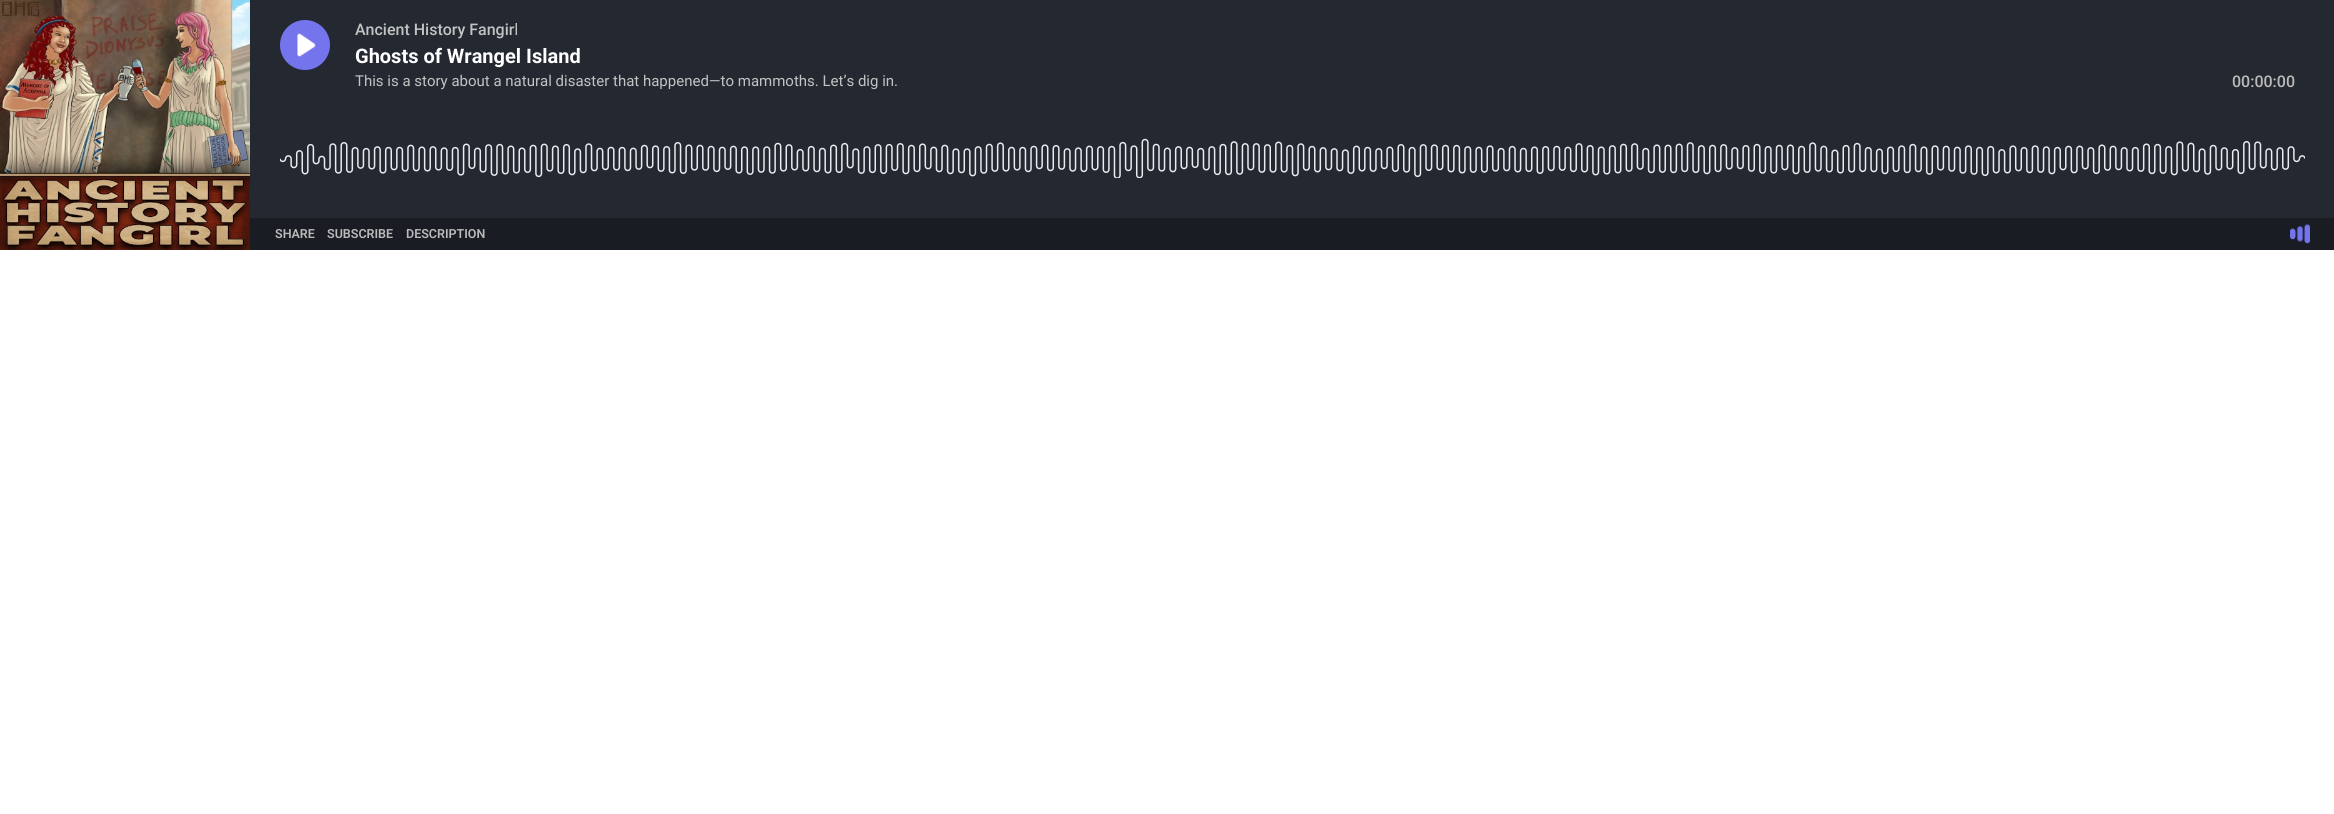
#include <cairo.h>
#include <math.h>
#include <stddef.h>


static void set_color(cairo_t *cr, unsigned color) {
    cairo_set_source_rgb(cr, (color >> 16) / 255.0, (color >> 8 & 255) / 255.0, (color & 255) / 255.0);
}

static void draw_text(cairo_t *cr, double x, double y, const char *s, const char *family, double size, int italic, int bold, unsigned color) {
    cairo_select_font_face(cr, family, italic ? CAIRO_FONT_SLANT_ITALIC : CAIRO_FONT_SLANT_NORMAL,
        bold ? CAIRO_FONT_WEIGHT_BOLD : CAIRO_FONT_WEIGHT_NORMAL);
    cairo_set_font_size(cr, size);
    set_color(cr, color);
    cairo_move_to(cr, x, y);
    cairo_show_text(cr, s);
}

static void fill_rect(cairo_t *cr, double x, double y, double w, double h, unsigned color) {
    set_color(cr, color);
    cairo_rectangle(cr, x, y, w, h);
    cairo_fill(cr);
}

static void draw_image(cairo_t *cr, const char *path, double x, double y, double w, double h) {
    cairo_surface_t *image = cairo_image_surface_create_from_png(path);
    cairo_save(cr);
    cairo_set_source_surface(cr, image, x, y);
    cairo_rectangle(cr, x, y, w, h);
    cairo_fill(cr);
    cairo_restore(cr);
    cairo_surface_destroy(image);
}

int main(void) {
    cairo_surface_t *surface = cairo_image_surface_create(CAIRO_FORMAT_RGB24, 2334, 814);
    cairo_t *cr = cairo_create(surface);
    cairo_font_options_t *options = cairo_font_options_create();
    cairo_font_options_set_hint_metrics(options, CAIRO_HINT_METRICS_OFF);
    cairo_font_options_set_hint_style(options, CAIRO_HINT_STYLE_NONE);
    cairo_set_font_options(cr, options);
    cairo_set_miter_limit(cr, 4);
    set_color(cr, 0xFFFFFF);
    cairo_paint(cr);
    draw_image(cr, "assets/img1.png", 0, 0, 250, 250);
    fill_rect(cr, 250, 0, 2084, 218, 0x232831);
    set_color(cr, 0x7474EC);
    cairo_arc(cr, 305, 45, 25, 0, 2 * M_PI);
    cairo_fill(cr);
    draw_image(cr, "assets/img2.png", 297, 33, 19, 24);
    draw_text(cr, 355, 35, "Ancient History Fangirl", "Roboto Medium", 16, 0, 0, 0xC3C3C3);
    draw_text(cr, 355, 63, "Ghosts of Wrangel Island", "Roboto", 20, 0, 1, 0xFFFFFF);
    draw_text(cr, 355, 86, "This is a story about a natural disaster that happened—to mammoths. Let’s dig in.", "Roboto", 15, 0, 0, 0xC3C3C3);
    draw_text(cr, 2232, 87, "00:00:00", "Roboto Medium", 16, 0, 0, 0xBABABA);
    draw_image(cr, "assets/img3.png", 280, 138, 2025, 40);
    fill_rect(cr, 250, 218, 2084, 32, 0x191D23);
    draw_text(cr, 275, 238, "SHARE", "Roboto SemiBold", 12.5, 0, 0, 0xBABABA);
    draw_text(cr, 327, 238, "SUBSCRIBE", "Roboto SemiBold", 12.5, 0, 0, 0xBABABA);
    draw_text(cr, 406, 238, "DESCRIPTION", "Roboto SemiBold", 12.5, 0, 0, 0xBABABA);
    draw_image(cr, "assets/img4.png", 2290, 224, 20, 20);
    cairo_surface_write_to_png(surface, "output.png");
    cairo_font_options_destroy(options);
    cairo_destroy(cr);
    cairo_surface_destroy(surface);
    return 0;
}
